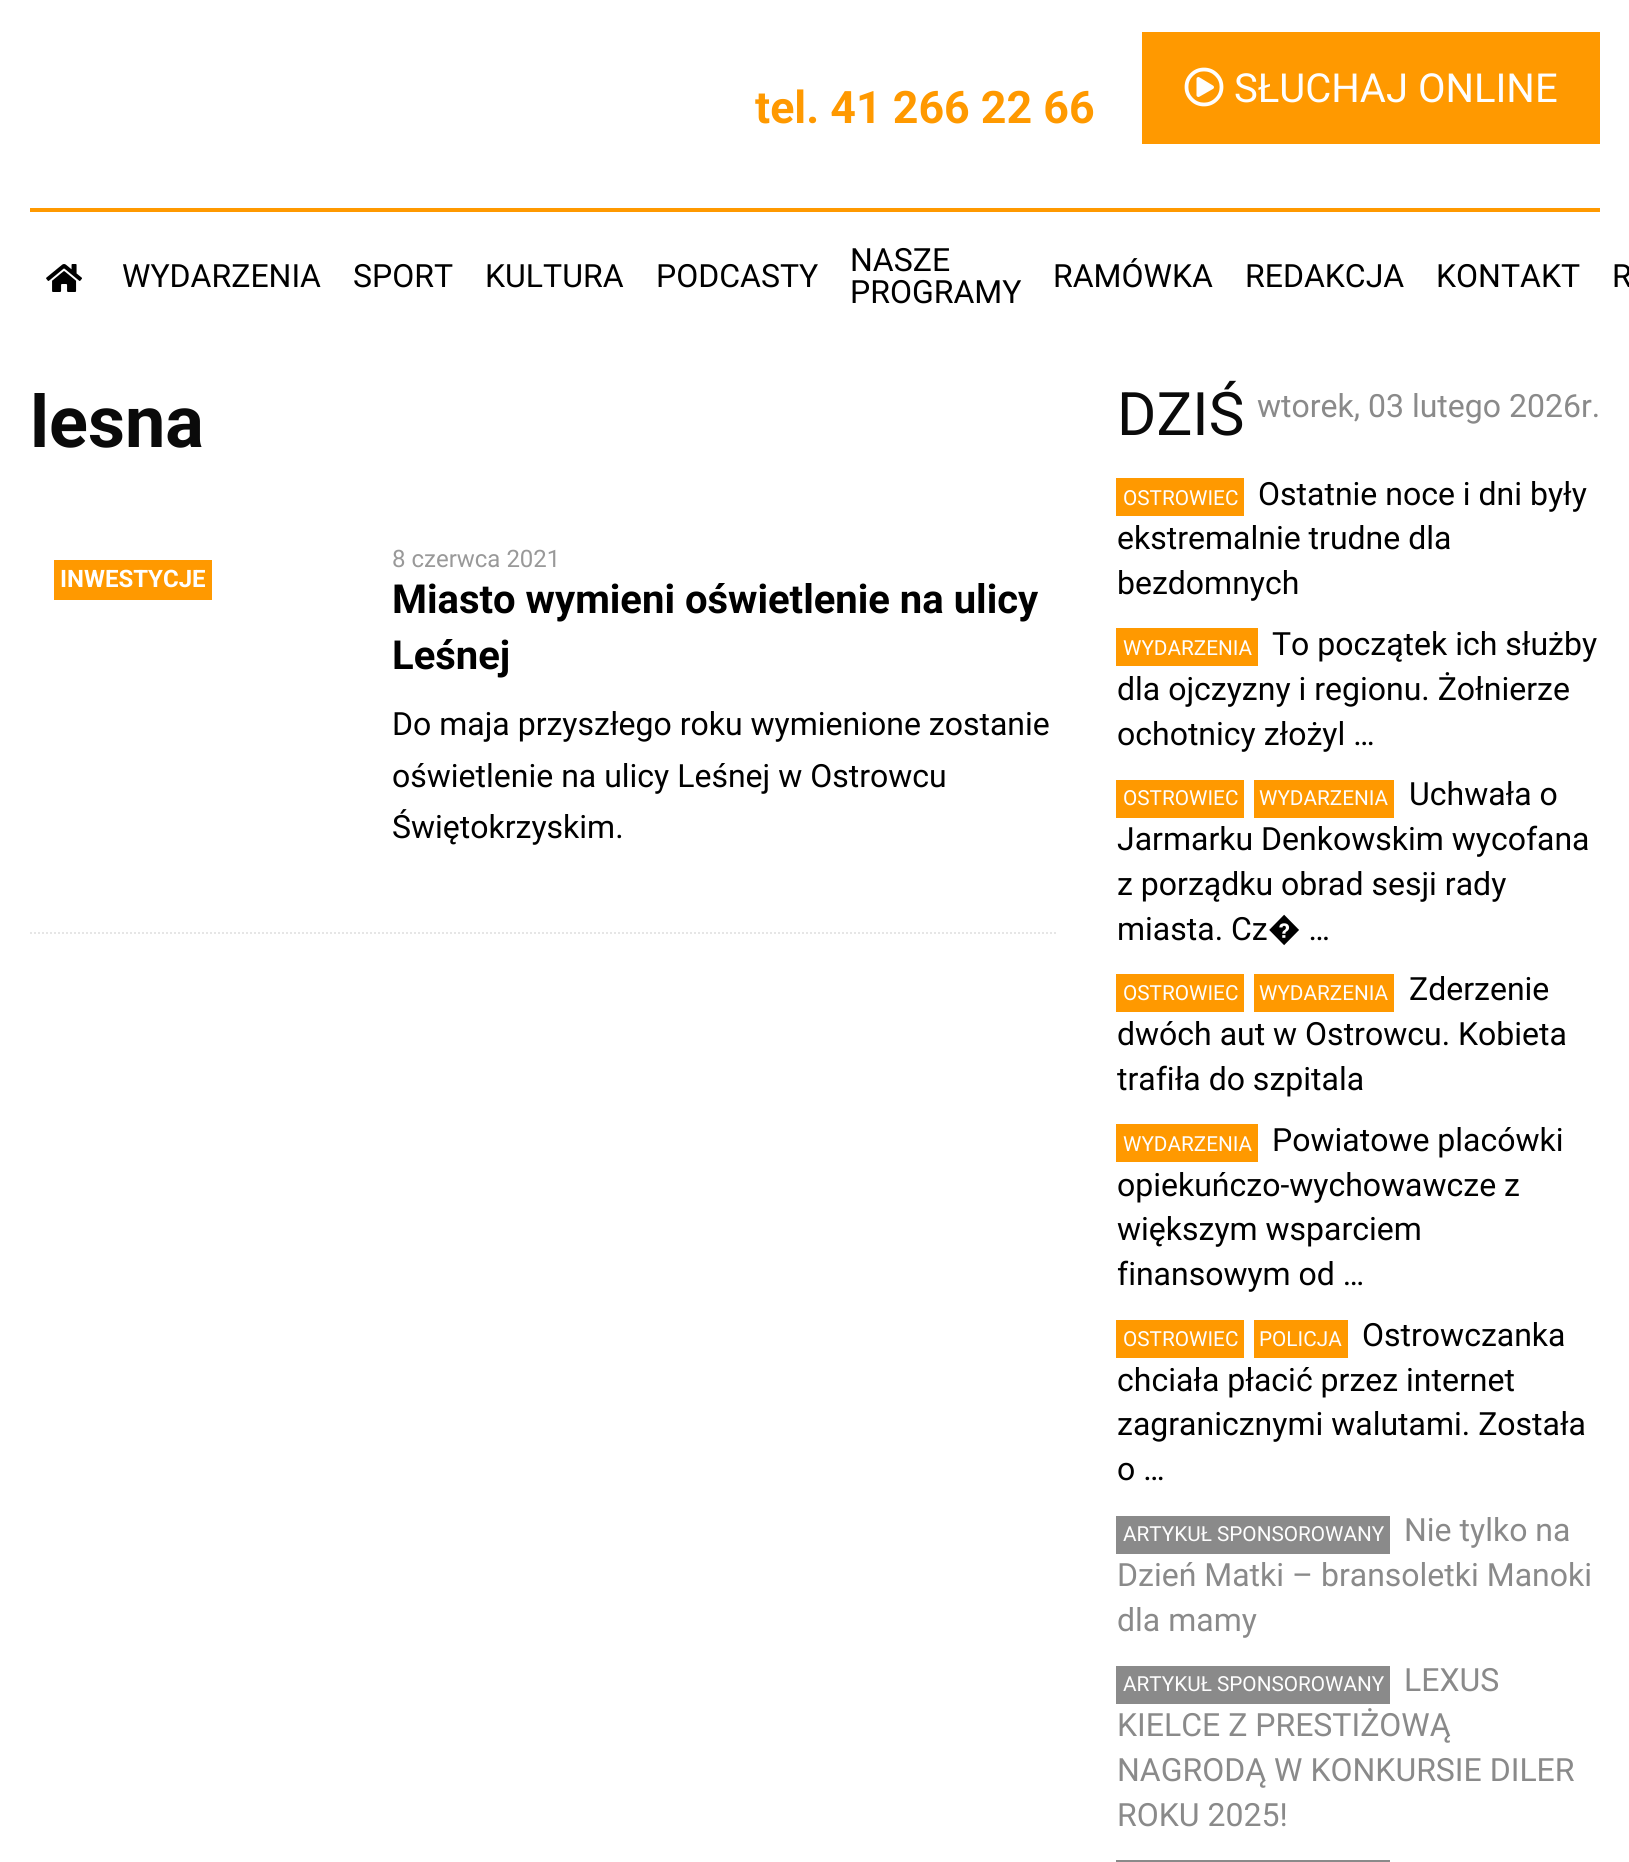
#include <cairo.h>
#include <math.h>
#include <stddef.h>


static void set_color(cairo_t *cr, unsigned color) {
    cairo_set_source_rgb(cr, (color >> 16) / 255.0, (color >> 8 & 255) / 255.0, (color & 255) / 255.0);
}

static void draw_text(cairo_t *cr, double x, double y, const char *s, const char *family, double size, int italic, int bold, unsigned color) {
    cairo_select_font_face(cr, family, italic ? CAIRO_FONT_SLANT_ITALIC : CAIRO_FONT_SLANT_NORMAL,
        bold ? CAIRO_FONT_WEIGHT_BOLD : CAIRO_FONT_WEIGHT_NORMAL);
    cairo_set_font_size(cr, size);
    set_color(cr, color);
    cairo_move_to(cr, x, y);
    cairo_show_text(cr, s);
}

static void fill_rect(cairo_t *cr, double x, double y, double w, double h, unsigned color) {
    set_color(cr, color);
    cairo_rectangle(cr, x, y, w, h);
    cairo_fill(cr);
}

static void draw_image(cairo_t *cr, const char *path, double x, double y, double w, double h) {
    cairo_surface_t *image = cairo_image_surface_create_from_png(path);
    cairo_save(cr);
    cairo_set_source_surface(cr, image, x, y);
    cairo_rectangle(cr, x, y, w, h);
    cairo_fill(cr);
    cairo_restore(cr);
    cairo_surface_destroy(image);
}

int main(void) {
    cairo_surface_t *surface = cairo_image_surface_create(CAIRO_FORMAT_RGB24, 1629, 1862);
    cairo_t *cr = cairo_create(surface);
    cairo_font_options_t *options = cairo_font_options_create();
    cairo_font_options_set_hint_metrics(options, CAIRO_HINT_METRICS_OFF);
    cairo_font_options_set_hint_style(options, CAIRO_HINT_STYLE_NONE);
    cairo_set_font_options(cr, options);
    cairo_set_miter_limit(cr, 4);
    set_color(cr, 0xFFFFFF);
    cairo_paint(cr);
    fill_rect(cr, 30, 208, 1570, 4, 0xFF9900);
    draw_text(cr, 755, 123, "tel. 41 266 22 66", "Roboto", 44.75, 0, 1, 0xFF9900);
    fill_rect(cr, 1142, 32, 458, 112, 0xFF9900);
    draw_image(cr, "assets/img1.png", 1184, 67, 40, 40);
    draw_text(cr, 1234, 102, "SŁUCHAJ ONLINE", "Roboto", 40, 0, 0, 0xFEFEFE);
    draw_image(cr, "assets/img2.png", 46, 264, 36, 28);
    draw_text(cr, 122, 287, "WYDARZENIA", "Roboto", 32, 0, 0, 0x000000);
    draw_text(cr, 353, 287, "SPORT", "Roboto", 32, 0, 0, 0x000000);
    draw_text(cr, 485, 287, "KULTURA", "Roboto", 32, 0, 0, 0x000000);
    draw_text(cr, 656, 287, "PODCASTY", "Roboto", 32, 0, 0, 0x000000);
    draw_text(cr, 850, 271, "NASZE", "Roboto", 32, 0, 0, 0x000000);
    draw_text(cr, 850, 303, "PROGRAMY", "Roboto", 32, 0, 0, 0x000000);
    draw_text(cr, 1053, 287, "RAMÓWKA", "Roboto", 32, 0, 0, 0x000000);
    draw_text(cr, 1245, 287, "REDAKCJA", "Roboto", 32, 0, 0, 0x000000);
    draw_text(cr, 1436, 287, "KONTAKT", "Roboto", 32, 0, 0, 0x000000);
    draw_text(cr, 1612, 287, "R", "Roboto", 32, 0, 0, 0x000000);
    draw_text(cr, 30, 447, "lesna", "Roboto", 72, 0, 1, 0x0A0A0A);
    cairo_new_path(cr);
    cairo_move_to(cr, 30, 933);
    cairo_line_to(cr, 1056, 933);
    set_color(cr, 0xE6E6E6);
    cairo_set_dash(cr, (double[]){2, 2}, 2, 0);
    cairo_stroke(cr);
    fill_rect(cr, 54, 560, 158, 40, 0xFF9900);
    draw_text(cr, 60, 587, "INWESTYCJE", "Roboto", 24, 0, 1, 0xFEFEFE);
    draw_text(cr, 392, 567, "8 czerwca 2021", "Roboto", 24, 0, 0, 0x999999);
    draw_text(cr, 392, 613, "Miasto wymieni oświetlenie na ulicy", "Roboto", 40, 0, 1, 0x000000);
    draw_text(cr, 392, 669, "Leśnej", "Roboto", 40, 0, 1, 0x000000);
    draw_text(cr, 392, 735, "Do maja przyszłego roku wymienione zostanie", "Roboto", 32, 0, 0, 0x000000);
    draw_text(cr, 392, 787, "oświetlenie na ulicy Leśnej w Ostrowcu", "Roboto", 32, 0, 0, 0x000000);
    draw_text(cr, 392, 838, "Świętokrzyskim.", "Roboto", 32, 0, 0, 0x000000);
    draw_text(cr, 1117, 435, "DZIŚ", "Roboto", 60, 0, 0, 0x0A0A0A);
    draw_text(cr, 1257, 417, "wtorek, 03 lutego 2026r.", "Roboto", 32, 0, 0, 0x8A8A8A);
    fill_rect(cr, 1116, 478, 128, 38, 0xFF9900);
    draw_text(cr, 1123, 505, "OSTROWIEC", "Roboto", 20.75, 0, 0, 0xFEFEFE);
    draw_text(cr, 1258, 505, "Ostatnie noce i dni były", "Roboto", 32, 0, 0, 0x000000);
    draw_text(cr, 1117, 549, "ekstremalnie trudne dla", "Roboto", 32, 0, 0, 0x000000);
    draw_text(cr, 1117, 594, "bezdomnych", "Roboto", 32, 0, 0, 0x000000);
    fill_rect(cr, 1116, 628, 142, 38, 0xFF9900);
    draw_text(cr, 1123, 655, "WYDARZENIA", "Roboto", 20.75, 0, 0, 0xFEFEFE);
    draw_text(cr, 1272, 655, "To początek ich służby", "Roboto", 32, 0, 0, 0x000000);
    draw_text(cr, 1117, 700, "dla ojczyzny i regionu. Żołnierze", "Roboto", 32, 0, 0, 0x000000);
    draw_text(cr, 1117, 745, "ochotnicy złożyl …", "Roboto", 32, 0, 0, 0x000000);
    fill_rect(cr, 1116, 780, 128, 38, 0xFF9900);
    draw_text(cr, 1123, 805, "OSTROWIEC", "Roboto", 20.75, 0, 0, 0xFEFEFE);
    fill_rect(cr, 1254, 780, 140, 38, 0xFF9900);
    draw_text(cr, 1259, 805, "WYDARZENIA", "Roboto", 20.75, 0, 0, 0xFEFEFE);
    draw_text(cr, 1409, 805, "Uchwała o", "Roboto", 32, 0, 0, 0x000000);
    draw_text(cr, 1117, 850, "Jarmarku Denkowskim wycofana", "Roboto", 32, 0, 0, 0x000000);
    draw_text(cr, 1117, 895, "z porządku obrad sesji rady", "Roboto", 32, 0, 0, 0x000000);
    draw_text(cr, 1117, 940, "miasta. Cz� …", "Roboto", 32, 0, 0, 0x000000);
    fill_rect(cr, 1116, 974, 128, 38, 0xFF9900);
    draw_text(cr, 1123, 1000, "OSTROWIEC", "Roboto", 20.75, 0, 0, 0xFEFEFE);
    fill_rect(cr, 1254, 974, 140, 38, 0xFF9900);
    draw_text(cr, 1259, 1000, "WYDARZENIA", "Roboto", 20.75, 0, 0, 0xFEFEFE);
    draw_text(cr, 1409, 1000, "Zderzenie", "Roboto", 32, 0, 0, 0x000000);
    draw_text(cr, 1117, 1045, "dwóch aut w Ostrowcu. Kobieta", "Roboto", 32, 0, 0, 0x000000);
    draw_text(cr, 1117, 1090, "trafiła do szpitala", "Roboto", 32, 0, 0, 0x000000);
    fill_rect(cr, 1116, 1124, 142, 38, 0xFF9900);
    draw_text(cr, 1123, 1151, "WYDARZENIA", "Roboto", 20.75, 0, 0, 0xFEFEFE);
    draw_text(cr, 1272, 1151, "Powiatowe placówki", "Roboto", 32, 0, 0, 0x000000);
    draw_text(cr, 1117, 1196, "opiekuńczo-wychowawcze z", "Roboto", 32, 0, 0, 0x000000);
    draw_text(cr, 1117, 1240, "większym wsparciem", "Roboto", 32, 0, 0, 0x000000);
    draw_text(cr, 1117, 1285, "finansowym od …", "Roboto", 32, 0, 0, 0x000000);
    fill_rect(cr, 1116, 1320, 128, 38, 0xFF9900);
    draw_text(cr, 1123, 1346, "OSTROWIEC", "Roboto", 20.75, 0, 0, 0xFEFEFE);
    fill_rect(cr, 1254, 1320, 94, 38, 0xFF9900);
    draw_text(cr, 1259, 1346, "POLICJA", "Roboto", 20.75, 0, 0, 0xFEFEFE);
    draw_text(cr, 1362, 1346, "Ostrowczanka", "Roboto", 32, 0, 0, 0x000000);
    draw_text(cr, 1117, 1391, "chciała płacić przez internet", "Roboto", 32, 0, 0, 0x000000);
    draw_text(cr, 1117, 1435, "zagranicznymi walutami. Została", "Roboto", 32, 0, 0, 0x000000);
    draw_text(cr, 1117, 1480, "o …", "Roboto", 32, 0, 0, 0x000000);
    fill_rect(cr, 1116, 1516, 274, 38, 0x8A8A8A);
    draw_text(cr, 1123, 1541, "ARTYKUŁ SPONSOROWANY", "Roboto", 20.75, 0, 0, 0xFEFEFE);
    draw_text(cr, 1404, 1541, "Nie tylko na", "Roboto", 32, 0, 0, 0x8A8A8A);
    draw_text(cr, 1117, 1586, "Dzień Matki – bransoletki Manoki", "Roboto", 32, 0, 0, 0x8A8A8A);
    draw_text(cr, 1117, 1631, "dla mamy", "Roboto", 32, 0, 0, 0x8A8A8A);
    fill_rect(cr, 1116, 1666, 274, 38, 0x8A8A8A);
    draw_text(cr, 1123, 1691, "ARTYKUŁ SPONSOROWANY", "Roboto", 20.75, 0, 0, 0xFEFEFE);
    draw_text(cr, 1404, 1691, "LEXUS", "Roboto", 32, 0, 0, 0x8A8A8A);
    draw_text(cr, 1117, 1736, "KIELCE Z PRESTIŻOWĄ", "Roboto", 32, 0, 0, 0x8A8A8A);
    draw_text(cr, 1117, 1781, "NAGRODĄ W KONKURSIE DILER", "Roboto", 32, 0, 0, 0x8A8A8A);
    draw_text(cr, 1117, 1826, "ROKU 2025!", "Roboto", 32, 0, 0, 0x8A8A8A);
    fill_rect(cr, 1116, 1860, 274, 2, 0x8A8A8A);
    cairo_surface_write_to_png(surface, "output.png");
    cairo_font_options_destroy(options);
    cairo_destroy(cr);
    cairo_surface_destroy(surface);
    return 0;
}
